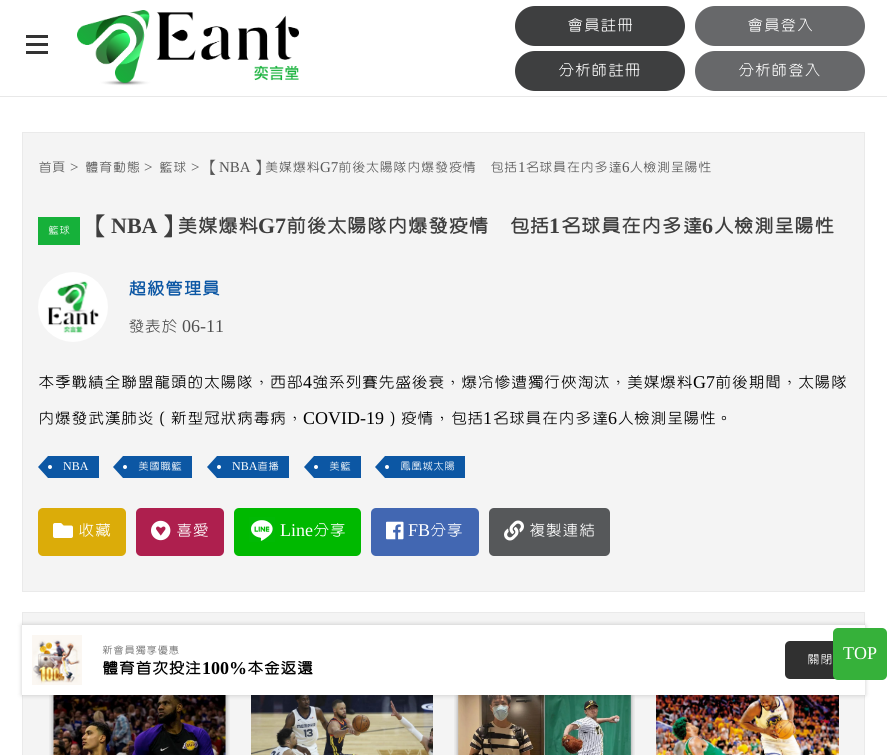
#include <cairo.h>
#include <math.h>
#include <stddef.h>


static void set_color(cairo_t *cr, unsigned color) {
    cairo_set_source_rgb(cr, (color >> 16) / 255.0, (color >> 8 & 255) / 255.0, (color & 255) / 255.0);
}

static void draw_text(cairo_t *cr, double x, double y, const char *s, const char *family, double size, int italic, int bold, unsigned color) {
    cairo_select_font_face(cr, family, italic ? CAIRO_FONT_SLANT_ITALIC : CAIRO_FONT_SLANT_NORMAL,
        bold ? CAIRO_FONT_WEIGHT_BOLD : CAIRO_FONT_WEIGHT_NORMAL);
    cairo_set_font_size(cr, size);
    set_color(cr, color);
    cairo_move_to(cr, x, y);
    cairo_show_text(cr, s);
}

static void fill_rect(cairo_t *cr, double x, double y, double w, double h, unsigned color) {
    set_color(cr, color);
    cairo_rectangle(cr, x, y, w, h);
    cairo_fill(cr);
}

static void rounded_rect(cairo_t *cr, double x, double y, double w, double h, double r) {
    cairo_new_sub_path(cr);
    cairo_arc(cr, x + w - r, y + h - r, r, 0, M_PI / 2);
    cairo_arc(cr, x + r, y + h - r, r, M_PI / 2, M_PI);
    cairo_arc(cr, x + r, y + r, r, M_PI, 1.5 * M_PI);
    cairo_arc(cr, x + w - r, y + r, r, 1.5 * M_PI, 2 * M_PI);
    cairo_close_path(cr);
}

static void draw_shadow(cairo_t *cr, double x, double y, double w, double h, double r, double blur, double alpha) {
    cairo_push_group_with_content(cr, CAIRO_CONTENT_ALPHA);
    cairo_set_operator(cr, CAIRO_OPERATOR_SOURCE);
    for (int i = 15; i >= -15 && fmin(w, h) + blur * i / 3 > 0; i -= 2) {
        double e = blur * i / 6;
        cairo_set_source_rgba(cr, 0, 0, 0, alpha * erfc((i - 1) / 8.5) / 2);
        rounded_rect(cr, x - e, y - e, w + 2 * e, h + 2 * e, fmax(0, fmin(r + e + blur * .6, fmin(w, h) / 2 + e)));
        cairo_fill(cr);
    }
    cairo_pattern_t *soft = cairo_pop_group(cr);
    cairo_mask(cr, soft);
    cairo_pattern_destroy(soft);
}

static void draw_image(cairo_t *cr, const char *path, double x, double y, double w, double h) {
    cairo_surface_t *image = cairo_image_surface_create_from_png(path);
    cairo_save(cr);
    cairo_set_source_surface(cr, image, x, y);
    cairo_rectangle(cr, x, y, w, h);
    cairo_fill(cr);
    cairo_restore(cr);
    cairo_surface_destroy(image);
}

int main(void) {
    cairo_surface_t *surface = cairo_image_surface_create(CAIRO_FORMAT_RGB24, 887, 755);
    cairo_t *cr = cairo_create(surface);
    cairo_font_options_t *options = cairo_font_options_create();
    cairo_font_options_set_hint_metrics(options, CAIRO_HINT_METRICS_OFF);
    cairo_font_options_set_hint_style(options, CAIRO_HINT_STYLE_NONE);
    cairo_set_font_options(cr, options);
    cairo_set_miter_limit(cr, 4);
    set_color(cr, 0xFFFFFF);
    cairo_paint(cr);
    fill_rect(cr, 0, 96, 887, 1, 0xE8E8E8);
    fill_rect(cr, 26, 35, 22, 3, 0x333333);
    fill_rect(cr, 26, 43, 22, 3, 0x333333);
    fill_rect(cr, 26, 51, 22, 3, 0x333333);
    draw_image(cr, "assets/img1.png", 77, 10, 222, 76);
    set_color(cr, 0x3E3F40);
    rounded_rect(cr, 515, 6, 170, 40, 20);
    cairo_fill(cr);
    draw_text(cr, 567, 31, "會員註冊", "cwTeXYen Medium", 18, 0, 0, 0xFFFFFF);
    set_color(cr, 0x67686A);
    rounded_rect(cr, 695, 6, 170, 40, 20);
    cairo_fill(cr);
    draw_text(cr, 747, 31, "會員登入", "cwTeXYen Medium", 18, 0, 0, 0xFFFFFF);
    set_color(cr, 0x3E3F40);
    rounded_rect(cr, 515, 51, 170, 40, 20);
    cairo_fill(cr);
    draw_text(cr, 558, 76, "分析師註冊", "cwTeXYen Medium", 18, 0, 0, 0xFFFFFF);
    set_color(cr, 0x67686A);
    rounded_rect(cr, 695, 51, 170, 40, 20);
    cairo_fill(cr);
    draw_text(cr, 738, 76, "分析師登入", "cwTeXYen Medium", 18, 0, 0, 0xFFFFFF);
    set_color(cr, 0xF4F4F4);
    cairo_rectangle(cr, 22.5, 132.5, 842, 459);
    cairo_fill_preserve(cr);
    set_color(cr, 0xEAEAEA);
    cairo_set_line_width(cr, 1);
    cairo_stroke(cr);
    draw_text(cr, 38, 172, "首頁", "cwTeXYen Medium", 15, 0, 0, 0x565656);
    draw_text(cr, 70, 172, ">", "Liberation Serif", 15, 0, 0, 0x565656);
    draw_text(cr, 85, 172, "體育動態", "cwTeXYen Medium", 15, 0, 0, 0x565656);
    draw_text(cr, 144, 172, ">", "Liberation Serif", 15, 0, 0, 0x565656);
    draw_text(cr, 159, 172, "籃球", "cwTeXYen Medium", 15, 0, 0, 0x565656);
    draw_text(cr, 191, 172, ">", "Liberation Serif", 15, 0, 0, 0x565656);
    draw_text(cr, 206, 172, "【", "cwTeXYen Medium", 15, 0, 0, 0x565656);
    draw_text(cr, 219, 172, "NBA", "Liberation Serif", 15, 0, 0, 0x565656);
    draw_text(cr, 251, 172, "】美媒爆料", "cwTeXYen Medium", 15, 0, 0, 0x565656);
    draw_text(cr, 320, 172, "G7", "Liberation Serif", 15, 0, 0, 0x565656);
    draw_text(cr, 338, 172, "前後太陽隊內爆發疫情　包括", "cwTeXYen Medium", 15, 0, 0, 0x565656);
    draw_text(cr, 518, 172, "1", "Liberation Serif", 15, 0, 0, 0x565656);
    draw_text(cr, 525, 172, "名球員在內多達", "cwTeXYen Medium", 15, 0, 0, 0x565656);
    draw_text(cr, 622, 172, "6", "Liberation Serif", 15, 0, 0, 0x565656);
    draw_text(cr, 629, 172, "人檢測呈陽性", "cwTeXYen Medium", 15, 0, 0, 0x565656);
    fill_rect(cr, 38, 217, 42, 28, 0x16B13A);
    draw_text(cr, 48, 234, "籃球", "cwTeXYen Medium", 12, 0, 0, 0xFFFFFF);
    draw_text(cr, 90, 233, "【", "cwTeXYen", 22, 0, 1, 0x3E3E3E);
    draw_text(cr, 111, 233, "NBA", "Liberation Serif", 22, 0, 1, 0x3E3E3E);
    draw_text(cr, 157, 233, "】美媒爆料", "cwTeXYen", 22, 0, 1, 0x3E3E3E);
    draw_text(cr, 258, 233, "G7", "Liberation Serif", 22, 0, 1, 0x3E3E3E);
    draw_text(cr, 286, 233, "前後太陽隊內爆發疫情　包括", "cwTeXYen", 22, 0, 1, 0x3E3E3E);
    draw_text(cr, 549, 233, "1", "Liberation Serif", 22, 0, 1, 0x3E3E3E);
    draw_text(cr, 560, 233, "名球員在內多達", "cwTeXYen", 22, 0, 1, 0x3E3E3E);
    draw_text(cr, 702, 233, "6", "Liberation Serif", 22, 0, 1, 0x3E3E3E);
    draw_text(cr, 713, 233, "人檢測呈陽性", "cwTeXYen", 22, 0, 1, 0x3E3E3E);
    draw_image(cr, "assets/img2.png", 38, 272, 70, 70);
    draw_text(cr, 128, 295, "超級管理員", "cwTeXYen", 20, 0, 1, 0x0C57A4);
    draw_text(cr, 128, 332, "發表於", "cwTeXYen Medium", 18, 0, 0, 0x505050);
    draw_text(cr, 182, 332, "06-11", "Liberation Serif", 18, 0, 0, 0x505050);
    draw_text(cr, 38, 388, "本季戰績全聯盟龍頭的太陽隊，西部", "cwTeXYen Medium", 18, 0, 0, 0x000000);
    draw_text(cr, 303, 388, "4", "Liberation Serif", 18, 0, 0, 0x000000);
    draw_text(cr, 312, 388, "強系列賽先盛後衰，爆冷慘遭獨行俠淘汰，美媒爆料", "cwTeXYen Medium", 18, 0, 0, 0x000000);
    draw_text(cr, 693, 388, "G7", "Liberation Serif", 18, 0, 0, 0x000000);
    draw_text(cr, 715, 388, "前後期間，太陽隊", "cwTeXYen Medium", 18, 0, 0, 0x000000);
    draw_text(cr, 38, 424, "內爆發武漢肺炎（新型冠狀病毒病，", "cwTeXYen Medium", 18, 0, 0, 0x000000);
    draw_text(cr, 303, 424, "COVID-19", "Liberation Serif", 18, 0, 0, 0x000000);
    draw_text(cr, 384, 424, "）疫情，包括", "cwTeXYen Medium", 18, 0, 0, 0x000000);
    draw_text(cr, 483, 424, "1", "Liberation Serif", 18, 0, 0, 0x000000);
    draw_text(cr, 492, 424, "名球員在內多達", "cwTeXYen Medium", 18, 0, 0, 0x000000);
    draw_text(cr, 608, 424, "6", "Liberation Serif", 18, 0, 0, 0x000000);
    draw_text(cr, 617, 424, "人檢測呈陽性。", "cwTeXYen Medium", 18, 0, 0, 0x000000);
    fill_rect(cr, 48, 456, 51, 22, 0x0C57A4);
    cairo_new_path(cr);
    cairo_move_to(cr, 48, 456);
    cairo_line_to(cr, 48, 478);
    cairo_line_to(cr, 38, 467);
    cairo_close_path(cr);
    cairo_fill(cr);
    set_color(cr, 0xFFFFFF);
    cairo_arc(cr, 50, 467, 2, 0, 2 * M_PI);
    cairo_fill(cr);
    draw_text(cr, 63, 470, "NBA", "Liberation Serif", 12, 0, 0, 0xFFFFFF);
    fill_rect(cr, 123, 456, 69, 22, 0x0C57A4);
    cairo_new_path(cr);
    cairo_move_to(cr, 123, 456);
    cairo_line_to(cr, 123, 478);
    cairo_line_to(cr, 113, 467);
    cairo_close_path(cr);
    cairo_fill(cr);
    set_color(cr, 0xFFFFFF);
    cairo_arc(cr, 125, 467, 2, 0, 2 * M_PI);
    cairo_fill(cr);
    draw_text(cr, 138, 470, "美國職籃", "cwTeXYen Medium", 12, 0, 0, 0xFFFFFF);
    fill_rect(cr, 217, 456, 72, 22, 0x0C57A4);
    cairo_new_path(cr);
    cairo_move_to(cr, 217, 456);
    cairo_line_to(cr, 217, 478);
    cairo_line_to(cr, 207, 467);
    cairo_close_path(cr);
    cairo_fill(cr);
    set_color(cr, 0xFFFFFF);
    cairo_arc(cr, 219, 467, 2, 0, 2 * M_PI);
    cairo_fill(cr);
    draw_text(cr, 232, 470, "NBA", "Liberation Serif", 12, 0, 0, 0xFFFFFF);
    draw_text(cr, 257, 470, "直播", "cwTeXYen Medium", 12, 0, 0, 0xFFFFFF);
    fill_rect(cr, 314, 456, 47, 22, 0x0C57A4);
    cairo_new_path(cr);
    cairo_move_to(cr, 314, 456);
    cairo_line_to(cr, 314, 478);
    cairo_line_to(cr, 304, 467);
    cairo_close_path(cr);
    cairo_fill(cr);
    set_color(cr, 0xFFFFFF);
    cairo_arc(cr, 316, 467, 2, 0, 2 * M_PI);
    cairo_fill(cr);
    draw_text(cr, 329, 470, "美籃", "cwTeXYen Medium", 12, 0, 0, 0xFFFFFF);
    fill_rect(cr, 385, 456, 80, 22, 0x0C57A4);
    cairo_new_path(cr);
    cairo_move_to(cr, 385, 456);
    cairo_line_to(cr, 385, 478);
    cairo_line_to(cr, 375, 467);
    cairo_close_path(cr);
    cairo_fill(cr);
    set_color(cr, 0xFFFFFF);
    cairo_arc(cr, 387, 467, 2, 0, 2 * M_PI);
    cairo_fill(cr);
    draw_text(cr, 400, 470, "鳳凰城太陽", "cwTeXYen Medium", 12, 0, 0, 0xFFFFFF);
    set_color(cr, 0xDBAC09);
    rounded_rect(cr, 38, 508, 88, 48, 5);
    cairo_fill(cr);
    draw_image(cr, "assets/img3.png", 53, 523, 20, 15);
    draw_text(cr, 78, 536, "收藏", "cwTeXYen Medium", 18, 0, 0, 0xFFFFFF);
    set_color(cr, 0xAE1F4E);
    rounded_rect(cr, 136, 508, 88, 48, 5);
    cairo_fill(cr);
    draw_image(cr, "assets/img4.png", 151, 520, 20, 21);
    draw_text(cr, 176, 536, "喜愛", "cwTeXYen Medium", 18, 0, 0, 0xFFFFFF);
    set_color(cr, 0x00B900);
    rounded_rect(cr, 234, 508, 127, 48, 5);
    cairo_fill(cr);
    fill_rect(cr, 251, 520, 22, 21, 0xFFFFFF);
    draw_image(cr, "assets/img5.png", 249, 517, 26, 25);
    draw_text(cr, 280, 536, "Line", "Liberation Serif", 18, 0, 0, 0xFFFFFF);
    draw_text(cr, 313, 536, "分享", "cwTeXYen Medium", 18, 0, 0, 0xFFFFFF);
    set_color(cr, 0x4267B2);
    rounded_rect(cr, 371, 508, 108, 48, 5);
    cairo_fill(cr);
    draw_image(cr, "assets/img6.png", 386, 521, 18, 19);
    draw_text(cr, 408, 536, "FB", "Liberation Serif", 18, 0, 0, 0xFFFFFF);
    draw_text(cr, 430, 536, "分享", "cwTeXYen Medium", 18, 0, 0, 0xFFFFFF);
    set_color(cr, 0x56585A);
    rounded_rect(cr, 489, 508, 121, 48, 5);
    cairo_fill(cr);
    draw_image(cr, "assets/img7.png", 504, 520, 20, 21);
    draw_text(cr, 529, 536, "複製連結", "cwTeXYen Medium", 18, 0, 0, 0xFFFFFF);
    set_color(cr, 0xF4F4F4);
    cairo_rectangle(cr, 22.5, 612.5, 842, 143);
    cairo_fill_preserve(cr);
    set_color(cr, 0xEAEAEA);
    cairo_stroke(cr);
    draw_image(cr, "assets/img8.png", 49, 695, 181, 60);
    draw_image(cr, "assets/img9.png", 251, 695, 182, 60);
    draw_image(cr, "assets/img10.png", 454, 695, 181, 60);
    draw_image(cr, "assets/img11.png", 656, 695, 183, 60);
    set_color(cr, 0x000000);
    draw_shadow(cr, 22, 625, 843, 70, 0, 2.5, 0.2);
    fill_rect(cr, 22, 625, 843, 70, 0xFFFFFF);
    draw_image(cr, "assets/img12.png", 32, 635, 50, 50);
    draw_text(cr, 102, 654, "新會員獨享優惠", "cwTeXYen Medium", 12, 0, 0, 0x6E6E6E);
    draw_text(cr, 102, 674, "體育首次投注", "cwTeXYen", 18, 0, 1, 0x000000);
    draw_text(cr, 202, 674, "100%", "Liberation Serif", 18, 0, 1, 0x000000);
    draw_text(cr, 247, 674, "本金返還", "cwTeXYen", 18, 0, 1, 0x000000);
    set_color(cr, 0x303030);
    rounded_rect(cr, 785, 641, 70, 38, 5);
    cairo_fill(cr);
    draw_text(cr, 807, 664, "關閉", "cwTeXYen Medium", 14, 0, 0, 0xFFFFFF);
    set_color(cr, 0x36B13A);
    rounded_rect(cr, 833, 628, 54, 52, 5);
    cairo_fill(cr);
    draw_text(cr, 843, 659, "TOP", "Liberation Serif", 18, 0, 0, 0xFFFFFF);
    cairo_surface_write_to_png(surface, "output.png");
    cairo_font_options_destroy(options);
    cairo_destroy(cr);
    cairo_surface_destroy(surface);
    return 0;
}
